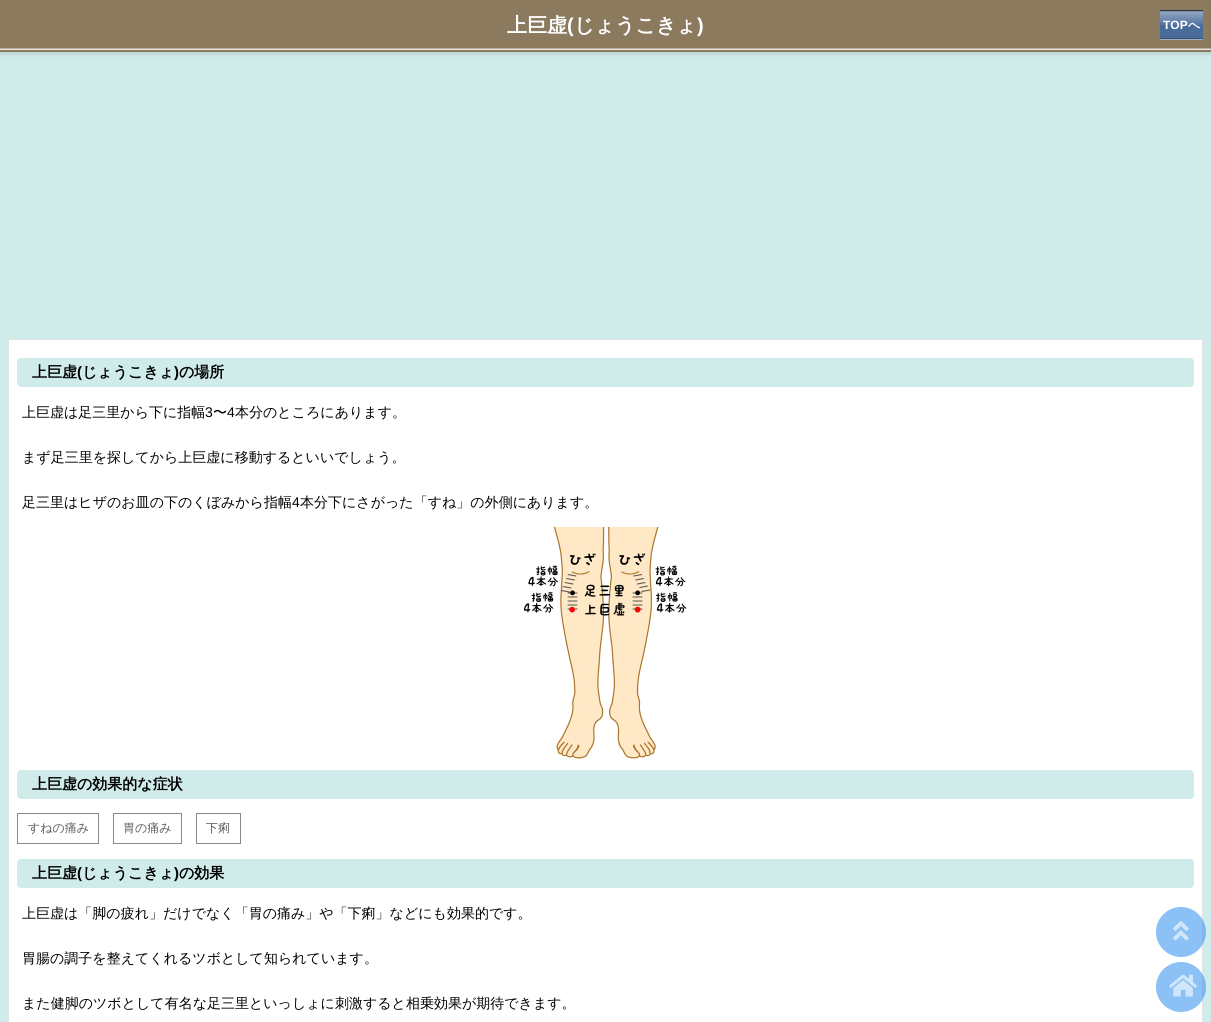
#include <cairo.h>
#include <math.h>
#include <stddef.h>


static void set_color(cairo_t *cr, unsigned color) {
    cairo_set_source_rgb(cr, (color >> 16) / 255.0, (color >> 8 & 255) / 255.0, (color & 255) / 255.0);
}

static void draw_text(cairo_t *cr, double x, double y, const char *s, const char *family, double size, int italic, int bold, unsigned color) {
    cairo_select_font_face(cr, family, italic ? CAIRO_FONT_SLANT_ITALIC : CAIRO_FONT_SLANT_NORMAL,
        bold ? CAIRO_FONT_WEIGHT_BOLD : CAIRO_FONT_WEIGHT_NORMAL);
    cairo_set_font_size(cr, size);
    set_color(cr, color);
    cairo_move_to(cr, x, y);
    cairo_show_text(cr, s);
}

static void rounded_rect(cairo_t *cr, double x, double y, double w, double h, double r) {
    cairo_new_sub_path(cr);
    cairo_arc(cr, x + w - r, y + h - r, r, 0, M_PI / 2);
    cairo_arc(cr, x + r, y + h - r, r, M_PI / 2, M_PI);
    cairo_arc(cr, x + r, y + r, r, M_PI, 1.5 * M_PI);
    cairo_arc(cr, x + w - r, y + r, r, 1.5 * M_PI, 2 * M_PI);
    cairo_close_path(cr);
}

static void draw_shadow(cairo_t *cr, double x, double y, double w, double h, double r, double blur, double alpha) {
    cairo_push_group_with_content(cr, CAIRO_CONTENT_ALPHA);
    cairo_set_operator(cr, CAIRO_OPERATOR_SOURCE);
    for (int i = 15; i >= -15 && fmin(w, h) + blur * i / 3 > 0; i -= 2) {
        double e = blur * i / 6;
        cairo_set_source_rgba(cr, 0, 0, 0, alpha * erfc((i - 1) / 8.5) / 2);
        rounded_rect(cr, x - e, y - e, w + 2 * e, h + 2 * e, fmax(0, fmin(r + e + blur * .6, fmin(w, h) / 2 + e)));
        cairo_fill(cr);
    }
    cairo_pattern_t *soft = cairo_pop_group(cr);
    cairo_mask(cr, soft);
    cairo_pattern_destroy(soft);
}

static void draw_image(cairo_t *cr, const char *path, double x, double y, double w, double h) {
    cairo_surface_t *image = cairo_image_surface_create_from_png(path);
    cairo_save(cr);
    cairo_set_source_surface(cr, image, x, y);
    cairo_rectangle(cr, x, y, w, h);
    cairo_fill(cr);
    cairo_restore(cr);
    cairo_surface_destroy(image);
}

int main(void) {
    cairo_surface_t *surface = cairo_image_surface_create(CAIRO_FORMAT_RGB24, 1211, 1022);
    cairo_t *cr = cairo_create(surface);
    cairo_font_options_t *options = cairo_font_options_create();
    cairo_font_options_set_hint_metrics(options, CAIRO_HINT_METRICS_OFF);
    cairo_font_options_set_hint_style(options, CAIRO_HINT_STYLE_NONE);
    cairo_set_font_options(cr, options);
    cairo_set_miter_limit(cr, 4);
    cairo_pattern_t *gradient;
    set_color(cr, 0xD0ECEA);
    cairo_paint(cr);
    set_color(cr, 0x000000);
    draw_shadow(cr, 0, 3, 1211, 52, 0, 1.5, 0.1);
    gradient = cairo_pattern_create_linear(0, 0, 0, 50);
    cairo_pattern_add_color_stop_rgba(gradient, 0, 0.545, 0.478, 0.369, 1);
    cairo_pattern_add_color_stop_rgba(gradient, 0.95, 0.545, 0.478, 0.369, 1);
    cairo_pattern_add_color_stop_rgba(gradient, 1, 1, 1, 1, 1);
    cairo_set_source(cr, gradient);
    cairo_pattern_destroy(gradient);
    cairo_rectangle(cr, 0, 0, 1211, 50);
    cairo_fill(cr);
    gradient = cairo_pattern_create_linear(0, 50, 0, 100);
    cairo_pattern_add_color_stop_rgba(gradient, 0, 0.545, 0.478, 0.369, 1);
    cairo_pattern_add_color_stop_rgba(gradient, 0.95, 0.545, 0.478, 0.369, 1);
    cairo_pattern_add_color_stop_rgba(gradient, 1, 1, 1, 1, 1);
    cairo_set_source(cr, gradient);
    cairo_pattern_destroy(gradient);
    cairo_rectangle(cr, 0, 50, 1211, 2);
    cairo_fill(cr);
    draw_text(cr, 507, 32, "上巨虚", "WenQuanYi Zen Hei", 20, 0, 1, 0xFFFFFF);
    draw_text(cr, 567, 32, "(", "Liberation Sans", 20, 0, 1, 0xFFFFFF);
    draw_text(cr, 574, 32, "じょうこきょ", "WenQuanYi Zen Hei", 20, 0, 1, 0xFFFFFF);
    draw_text(cr, 697, 32, ")", "Liberation Sans", 20, 0, 1, 0xFFFFFF);
    draw_image(cr, "assets/img1.png", 1160, 10, 43, 30);
    draw_text(cr, 1163, 29, "TOP", "Liberation Sans", 12, 0, 1, 0xFFFFFF);
    draw_text(cr, 1188, 29, "へ", "WenQuanYi Zen Hei", 12, 0, 1, 0xFFFFFF);
    cairo_rectangle(cr, 8.5, 339.5, 1194, 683);
    cairo_fill_preserve(cr);
    set_color(cr, 0xE3E3E3);
    cairo_set_line_width(cr, 1);
    cairo_stroke(cr);
    set_color(cr, 0xD0ECEA);
    rounded_rect(cr, 17, 358, 1177, 29, 4);
    cairo_fill(cr);
    draw_text(cr, 32, 377, "上巨虚", "WenQuanYi Zen Hei", 15, 0, 1, 0x000000);
    draw_text(cr, 77, 377, "(", "Liberation Sans", 15, 0, 1, 0x000000);
    draw_text(cr, 82, 377, "じょうこきょ", "WenQuanYi Zen Hei", 15, 0, 1, 0x000000);
    draw_text(cr, 174, 377, ")", "Liberation Sans", 15, 0, 1, 0x000000);
    draw_text(cr, 179, 377, "の場所", "WenQuanYi Zen Hei", 15, 0, 1, 0x000000);
    draw_text(cr, 22, 417, "上巨虚は足三里から下に指幅", "WenQuanYi Zen Hei Medium", 14, 0, 0, 0x000000);
    draw_text(cr, 205, 417, "3", "Liberation Sans", 14, 0, 0, 0x000000);
    draw_text(cr, 213, 417, "〜", "WenQuanYi Zen Hei Medium", 14, 0, 0, 0x000000);
    draw_text(cr, 227, 417, "4", "Liberation Sans", 14, 0, 0, 0x000000);
    draw_text(cr, 235, 417, "本分のところにあります。", "WenQuanYi Zen Hei Medium", 14, 0, 0, 0x000000);
    draw_text(cr, 22, 462, "まず足三里を探してから上巨虚に移動するといいでしょう。", "WenQuanYi Zen Hei Medium", 14, 0, 0, 0x000000);
    draw_text(cr, 22, 507, "足三里はヒザのお皿の下のくぼみから指幅", "WenQuanYi Zen Hei Medium", 14, 0, 0, 0x000000);
    draw_text(cr, 292, 507, "4", "Liberation Sans", 14, 0, 0, 0x000000);
    draw_text(cr, 300, 507, "本分下にさがった「すね」の外側にあります。", "WenQuanYi Zen Hei Medium", 14, 0, 0, 0x000000);
    draw_image(cr, "assets/img2.png", 523, 527, 164, 232);
    set_color(cr, 0xD0ECEA);
    rounded_rect(cr, 17, 770, 1177, 29, 4);
    cairo_fill(cr);
    draw_text(cr, 32, 789, "上巨虚の効果的な症状", "WenQuanYi Zen Hei", 15, 0, 1, 0x000000);
    cairo_rectangle(cr, 17.5, 813.5, 81, 30);
    set_color(cr, 0x888888);
    cairo_stroke(cr);
    draw_text(cr, 28, 832, "すねの痛み", "WenQuanYi Zen Hei Medium", 12, 0, 0, 0x5C5C5C);
    cairo_rectangle(cr, 113.5, 813.5, 68, 30);
    set_color(cr, 0x888888);
    cairo_stroke(cr);
    draw_text(cr, 123, 832, "胃の痛み", "WenQuanYi Zen Hei Medium", 12, 0, 0, 0x5C5C5C);
    cairo_rectangle(cr, 196.5, 813.5, 44, 30);
    set_color(cr, 0x888888);
    cairo_stroke(cr);
    draw_text(cr, 206, 832, "下痢", "WenQuanYi Zen Hei Medium", 12, 0, 0, 0x5C5C5C);
    set_color(cr, 0xD0ECEA);
    rounded_rect(cr, 17, 859, 1177, 29, 4);
    cairo_fill(cr);
    draw_text(cr, 32, 878, "上巨虚", "WenQuanYi Zen Hei", 15, 0, 1, 0x000000);
    draw_text(cr, 77, 878, "(", "Liberation Sans", 15, 0, 1, 0x000000);
    draw_text(cr, 82, 878, "じょうこきょ", "WenQuanYi Zen Hei", 15, 0, 1, 0x000000);
    draw_text(cr, 174, 878, ")", "Liberation Sans", 15, 0, 1, 0x000000);
    draw_text(cr, 179, 878, "の効果", "WenQuanYi Zen Hei", 15, 0, 1, 0x000000);
    draw_text(cr, 22, 918, "上巨虚は「脚の疲れ」だけでなく「胃の痛み」や「下痢」などにも効果的です。", "WenQuanYi Zen Hei Medium", 14, 0, 0, 0x000000);
    draw_text(cr, 22, 963, "胃腸の調子を整えてくれるツボとして知られています。", "WenQuanYi Zen Hei Medium", 14, 0, 0, 0x000000);
    draw_text(cr, 22, 1008, "また健脚のツボとして有名な足三里といっしょに刺激すると相乗効果が期待できます。", "WenQuanYi Zen Hei Medium", 14, 0, 0, 0x000000);
    cairo_set_source_rgba(cr, 0.247, 0.596, 0.937, 0.6);
    cairo_new_path(cr);
    cairo_arc(cr, 1181, 932, 25, 0, 2 * M_PI);
    cairo_fill(cr);
    draw_image(cr, "assets/img3.png", 1173, 921, 16, 20);
    cairo_arc(cr, 1181, 987, 25, 0, 2 * M_PI);
    cairo_fill(cr);
    draw_image(cr, "assets/img4.png", 1169, 974, 29, 23);
    cairo_surface_write_to_png(surface, "output.png");
    cairo_font_options_destroy(options);
    cairo_destroy(cr);
    cairo_surface_destroy(surface);
    return 0;
}
